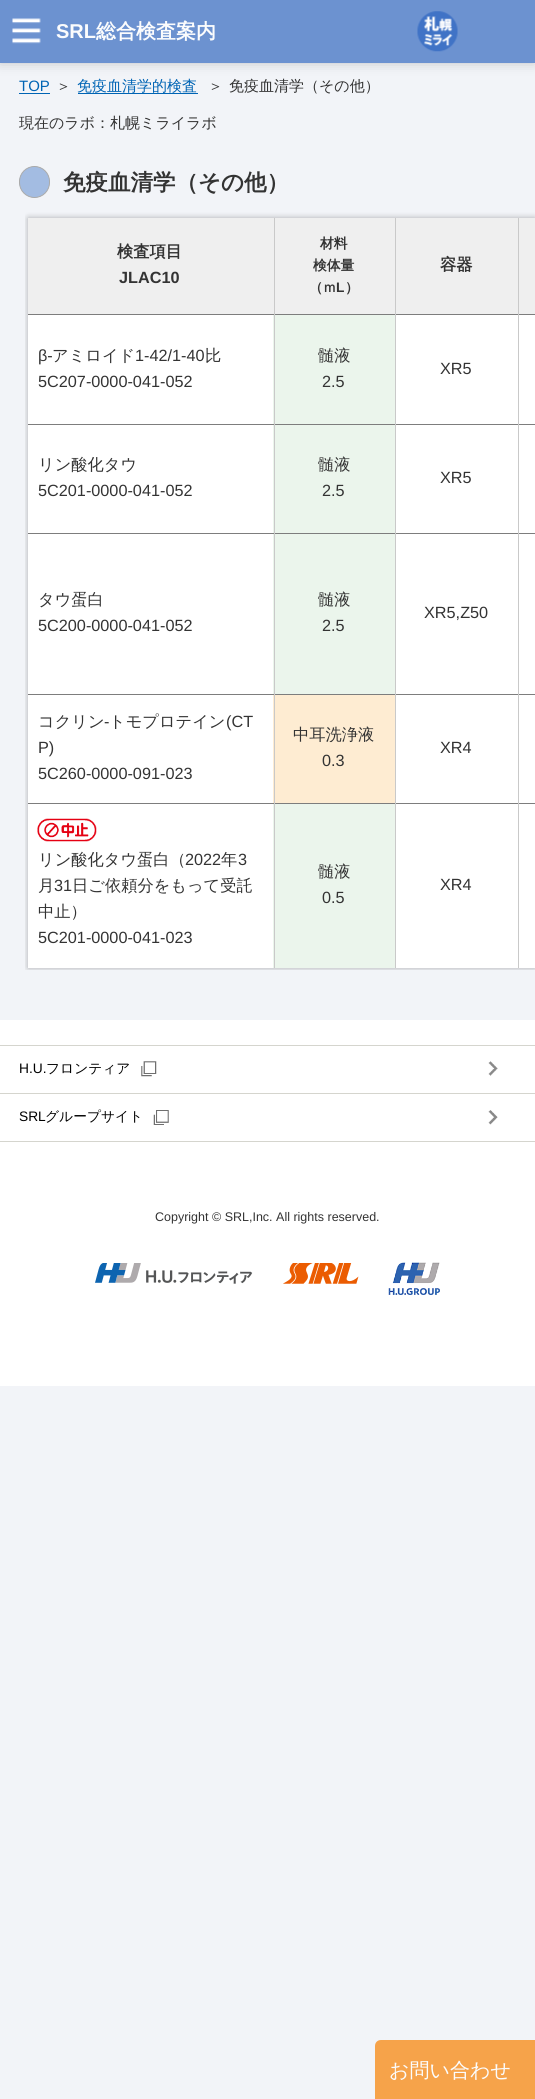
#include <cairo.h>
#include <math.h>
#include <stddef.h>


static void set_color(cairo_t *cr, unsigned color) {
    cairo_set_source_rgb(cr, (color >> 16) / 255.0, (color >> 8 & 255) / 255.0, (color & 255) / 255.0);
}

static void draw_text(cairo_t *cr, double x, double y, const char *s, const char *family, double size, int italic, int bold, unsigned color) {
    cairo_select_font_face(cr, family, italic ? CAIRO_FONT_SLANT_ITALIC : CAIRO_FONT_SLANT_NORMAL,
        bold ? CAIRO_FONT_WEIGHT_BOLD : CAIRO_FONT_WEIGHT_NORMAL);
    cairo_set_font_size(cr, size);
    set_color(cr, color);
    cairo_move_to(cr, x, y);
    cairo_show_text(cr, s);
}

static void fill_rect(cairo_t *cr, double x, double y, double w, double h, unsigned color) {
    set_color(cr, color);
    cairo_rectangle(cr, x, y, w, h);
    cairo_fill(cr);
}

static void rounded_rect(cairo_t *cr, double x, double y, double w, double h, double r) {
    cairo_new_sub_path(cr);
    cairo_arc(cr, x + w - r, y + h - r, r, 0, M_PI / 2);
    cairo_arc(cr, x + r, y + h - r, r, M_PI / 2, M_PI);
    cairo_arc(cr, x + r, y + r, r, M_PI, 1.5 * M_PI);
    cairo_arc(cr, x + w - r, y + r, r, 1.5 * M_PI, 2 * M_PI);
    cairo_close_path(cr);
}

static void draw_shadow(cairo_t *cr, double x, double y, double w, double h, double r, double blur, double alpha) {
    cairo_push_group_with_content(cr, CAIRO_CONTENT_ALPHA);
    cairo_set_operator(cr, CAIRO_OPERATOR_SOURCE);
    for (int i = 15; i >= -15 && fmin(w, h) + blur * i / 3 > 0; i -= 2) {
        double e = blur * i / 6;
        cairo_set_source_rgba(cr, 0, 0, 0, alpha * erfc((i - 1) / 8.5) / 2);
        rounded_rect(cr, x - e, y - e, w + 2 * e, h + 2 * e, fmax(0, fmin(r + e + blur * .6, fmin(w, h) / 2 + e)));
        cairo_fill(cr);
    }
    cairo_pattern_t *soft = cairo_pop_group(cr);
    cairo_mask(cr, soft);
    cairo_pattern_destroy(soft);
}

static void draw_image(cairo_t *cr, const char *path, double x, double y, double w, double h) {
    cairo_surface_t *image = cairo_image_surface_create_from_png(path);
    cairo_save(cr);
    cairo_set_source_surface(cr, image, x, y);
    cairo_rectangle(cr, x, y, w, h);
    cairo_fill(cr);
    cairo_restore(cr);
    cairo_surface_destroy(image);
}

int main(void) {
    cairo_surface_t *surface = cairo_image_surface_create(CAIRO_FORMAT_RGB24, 535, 2099);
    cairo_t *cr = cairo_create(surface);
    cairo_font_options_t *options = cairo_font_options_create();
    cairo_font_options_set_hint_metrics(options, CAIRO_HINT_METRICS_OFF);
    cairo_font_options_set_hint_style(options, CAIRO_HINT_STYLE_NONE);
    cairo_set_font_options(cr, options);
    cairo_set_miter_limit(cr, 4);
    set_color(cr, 0xF2F4F8);
    cairo_paint(cr);
    set_color(cr, 0x000000);
    draw_shadow(cr, 0, 0, 535, 63, 0, 6, 0.2);
    fill_rect(cr, 0, 0, 535, 63, 0x6C92D0);
    draw_image(cr, "assets/img1.png", 12, 18, 29, 26);
    draw_text(cr, 56, 38, "SRL", "Liberation Sans", 20, 0, 1, 0xFBFCFD);
    draw_text(cr, 96, 38, "総合検査案内", "WenQuanYi Zen Hei", 20, 0, 1, 0xFBFCFD);
    draw_image(cr, "assets/img2.png", 417, 11, 41, 41);
    draw_text(cr, 19, 91, "TOP", "Liberation Sans", 15, 0, 0, 0x0064B4);
    fill_rect(cr, 19, 93, 31, 1, 0x0064B4);
    draw_text(cr, 56, 91, "＞", "WenQuanYi Zen Hei Medium", 15, 0, 0, 0x333333);
    draw_text(cr, 77, 91, "免疫血清学的検査", "WenQuanYi Zen Hei Medium", 15, 0, 0, 0x0064B4);
    fill_rect(cr, 78, 93, 120, 1, 0x0064B4);
    draw_text(cr, 208, 91, "＞", "WenQuanYi Zen Hei Medium", 15, 0, 0, 0x333333);
    draw_text(cr, 229, 91, "免疫血清学（その他）", "WenQuanYi Zen Hei Medium", 15, 0, 0, 0x333333);
    draw_text(cr, 19, 128, "現在のラボ：札幌ミライラボ", "WenQuanYi Zen Hei Medium", 15, 0, 0, 0x333333);
    set_color(cr, 0xA3BCE2);
    rounded_rect(cr, 19.5, 166.5, 30, 31, 15);
    cairo_fill_preserve(cr);
    set_color(cr, 0xAAAAAA);
    cairo_set_line_width(cr, 1);
    cairo_stroke(cr);
    draw_text(cr, 63, 190, "免疫血清学（その他）", "WenQuanYi Zen Hei", 22.5, 0, 1, 0x333333);
    cairo_save(cr);
    cairo_rectangle(cr, 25, 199, 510, 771);
    cairo_clip(cr);
    set_color(cr, 0x000000);
    draw_shadow(cr, 28, 218, 507, 750, 0, 3, 0.3);
    cairo_restore(cr);
    fill_rect(cr, 274, 218, 1, 750, 0xC9C9C9);
    fill_rect(cr, 28, 218, 246, 96, 0xEFEFEF);
    draw_text(cr, 117, 257, "検査項目", "WenQuanYi Zen Hei", 16.25, 0, 1, 0x333333);
    draw_text(cr, 119, 283, "JLAC10", "Liberation Sans", 16.25, 0, 1, 0x333333);
    fill_rect(cr, 28, 315, 245, 109, 0xFFFFFF);
    fill_rect(cr, 28, 314, 246, 1, 0x7D7D7D);
    draw_text(cr, 38, 361, "β-", "Liberation Sans", 16.25, 0, 0, 0x333333);
    draw_text(cr, 52, 361, "アミロイド", "WenQuanYi Zen Hei Medium", 16.25, 0, 0, 0x333333);
    draw_text(cr, 135, 361, "1-42/1-40", "Liberation Sans", 16.25, 0, 0, 0x333333);
    draw_text(cr, 205, 361, "比", "WenQuanYi Zen Hei Medium", 16.25, 0, 0, 0x333333);
    draw_text(cr, 38, 387, "5C207-0000-041-052", "Liberation Sans", 16.25, 0, 0, 0x333333);
    fill_rect(cr, 273, 315, 1, 379, 0xEBF5EC);
    fill_rect(cr, 28, 425, 245, 108, 0xFFFFFF);
    fill_rect(cr, 28, 424, 246, 1, 0x7D7D7D);
    draw_text(cr, 38, 470, "リン酸化タウ", "WenQuanYi Zen Hei Medium", 16.25, 0, 0, 0x333333);
    draw_text(cr, 38, 496, "5C201-0000-041-052", "Liberation Sans", 16.25, 0, 0, 0x333333);
    fill_rect(cr, 28, 534, 245, 160, 0xFFFFFF);
    fill_rect(cr, 28, 533, 246, 1, 0x7D7D7D);
    draw_text(cr, 38, 605, "タウ蛋白", "WenQuanYi Zen Hei Medium", 16.25, 0, 0, 0x333333);
    draw_text(cr, 38, 631, "5C200-0000-041-052", "Liberation Sans", 16.25, 0, 0, 0x333333);
    fill_rect(cr, 28, 695, 245, 108, 0xFFFFFF);
    fill_rect(cr, 273, 694, 1, 110, 0xFEECD2);
    fill_rect(cr, 28, 694, 246, 1, 0x7D7D7D);
    draw_text(cr, 38, 727, "コクリン", "WenQuanYi Zen Hei Medium", 16.25, 0, 0, 0x333333);
    draw_text(cr, 104, 727, "-", "Liberation Sans", 16.25, 0, 0, 0x333333);
    draw_text(cr, 109, 727, "トモプロテイン", "WenQuanYi Zen Hei Medium", 16.25, 0, 0, 0x333333);
    draw_text(cr, 226, 727, "(CT", "Liberation Sans", 16.25, 0, 0, 0x333333);
    draw_text(cr, 38, 753, "P)", "Liberation Sans", 16.25, 0, 0, 0x333333);
    draw_text(cr, 38, 779, "5C260-0000-091-023", "Liberation Sans", 16.25, 0, 0, 0x333333);
    fill_rect(cr, 28, 804, 245, 164, 0xFFFFFF);
    fill_rect(cr, 28, 803, 246, 1, 0x7D7D7D);
    draw_image(cr, "assets/img3.png", 37, 818, 60, 24);
    draw_text(cr, 38, 865, "リン酸化タウ蛋白（", "WenQuanYi Zen Hei Medium", 16.25, 0, 0, 0x333333);
    draw_text(cr, 185, 865, "2022", "Liberation Sans", 16.25, 0, 0, 0x333333);
    draw_text(cr, 221, 865, "年", "WenQuanYi Zen Hei Medium", 16.25, 0, 0, 0x333333);
    draw_text(cr, 238, 865, "3", "Liberation Sans", 16.25, 0, 0, 0x333333);
    draw_text(cr, 38, 891, "月", "WenQuanYi Zen Hei Medium", 16.25, 0, 0, 0x333333);
    draw_text(cr, 54, 891, "31", "Liberation Sans", 16.25, 0, 0, 0x333333);
    draw_text(cr, 72, 891, "日ご依頼分をもって受託", "WenQuanYi Zen Hei Medium", 16.25, 0, 0, 0x333333);
    draw_text(cr, 38, 917, "中止）", "WenQuanYi Zen Hei Medium", 16.25, 0, 0, 0x333333);
    draw_text(cr, 38, 943, "5C201-0000-041-023", "Liberation Sans", 16.25, 0, 0, 0x333333);
    fill_rect(cr, 273, 804, 1, 164, 0xEBF5EC);
    fill_rect(cr, 275, 218, 260, 96, 0xEFEFEF);
    draw_text(cr, 320, 248, "材料", "WenQuanYi Zen Hei", 13.75, 0, 1, 0x333333);
    draw_text(cr, 313, 270, "検体量", "WenQuanYi Zen Hei", 13.75, 0, 1, 0x333333);
    draw_text(cr, 309, 292, "（ｍ", "WenQuanYi Zen Hei", 13.75, 0, 1, 0x333333);
    draw_text(cr, 336, 292, "L", "Liberation Sans", 13.75, 0, 1, 0x333333);
    draw_text(cr, 345, 292, "）", "WenQuanYi Zen Hei", 13.75, 0, 1, 0x333333);
    draw_text(cr, 440, 270, "容器", "WenQuanYi Zen Hei", 16.25, 0, 1, 0x333333);
    fill_rect(cr, 396, 315, 139, 109, 0xFFFFFF);
    fill_rect(cr, 275, 314, 260, 1, 0x7D7D7D);
    fill_rect(cr, 275, 315, 120, 109, 0xEBF5EC);
    draw_text(cr, 318, 361, "髄液", "WenQuanYi Zen Hei Medium", 16.25, 0, 0, 0x333333);
    draw_text(cr, 322, 387, "2.5", "Liberation Sans", 16.25, 0, 0, 0x333333);
    draw_text(cr, 440, 374, "XR5", "Liberation Sans", 16.25, 0, 0, 0x333333);
    fill_rect(cr, 396, 425, 139, 108, 0xFFFFFF);
    fill_rect(cr, 275, 424, 260, 1, 0x7D7D7D);
    fill_rect(cr, 275, 425, 120, 108, 0xEBF5EC);
    draw_text(cr, 318, 470, "髄液", "WenQuanYi Zen Hei Medium", 16.25, 0, 0, 0x333333);
    draw_text(cr, 322, 496, "2.5", "Liberation Sans", 16.25, 0, 0, 0x333333);
    draw_text(cr, 440, 483, "XR5", "Liberation Sans", 16.25, 0, 0, 0x333333);
    fill_rect(cr, 396, 534, 139, 160, 0xFFFFFF);
    fill_rect(cr, 275, 533, 260, 1, 0x7D7D7D);
    fill_rect(cr, 275, 534, 120, 160, 0xEBF5EC);
    draw_text(cr, 318, 605, "髄液", "WenQuanYi Zen Hei Medium", 16.25, 0, 0, 0x333333);
    draw_text(cr, 322, 631, "2.5", "Liberation Sans", 16.25, 0, 0, 0x333333);
    draw_text(cr, 424, 618, "XR5,Z50", "Liberation Sans", 16.25, 0, 0, 0x333333);
    fill_rect(cr, 396, 695, 139, 108, 0xFFFFFF);
    fill_rect(cr, 275, 694, 260, 1, 0x7D7D7D);
    fill_rect(cr, 275, 695, 120, 108, 0xFEECD2);
    draw_text(cr, 293, 740, "中耳洗浄液", "WenQuanYi Zen Hei Medium", 16.25, 0, 0, 0x333333);
    draw_text(cr, 322, 766, "0.3", "Liberation Sans", 16.25, 0, 0, 0x333333);
    draw_text(cr, 440, 753, "XR4", "Liberation Sans", 16.25, 0, 0, 0x333333);
    fill_rect(cr, 396, 804, 139, 164, 0xFFFFFF);
    fill_rect(cr, 275, 803, 260, 1, 0x7D7D7D);
    fill_rect(cr, 275, 804, 120, 164, 0xEBF5EC);
    fill_rect(cr, 395, 218, 1, 750, 0xC9C9C9);
    draw_text(cr, 318, 877, "髄液", "WenQuanYi Zen Hei Medium", 16.25, 0, 0, 0x333333);
    draw_text(cr, 322, 903, "0.5", "Liberation Sans", 16.25, 0, 0, 0x333333);
    fill_rect(cr, 518, 218, 1, 750, 0xC9C9C9);
    draw_text(cr, 440, 890, "XR4", "Liberation Sans", 16.25, 0, 0, 0x333333);
    fill_rect(cr, 0, 1020, 535, 366, 0xFFFFFF);
    fill_rect(cr, 0, 1045, 535, 1, 0xD5D5CE);
    fill_rect(cr, 0, 1093, 535, 1, 0xD5D5CE);
    draw_text(cr, 19, 1073, "H.U.", "Liberation Sans", 13.75, 0, 0, 0x000000);
    draw_text(cr, 46, 1073, "フロンティア", "WenQuanYi Zen Hei Medium", 13.75, 0, 0, 0x000000);
    draw_image(cr, "assets/img4.png", 141, 1061, 16, 16);
    draw_image(cr, "assets/img5.png", 488, 1061, 10, 15);
    fill_rect(cr, 0, 1141, 535, 1, 0xD5D5CE);
    draw_text(cr, 19, 1121, "SRL", "Liberation Sans", 13.75, 0, 0, 0x000000);
    draw_text(cr, 45, 1121, "グループサイト", "WenQuanYi Zen Hei Medium", 13.75, 0, 0, 0x000000);
    draw_image(cr, "assets/img6.png", 153, 1110, 16, 15);
    draw_image(cr, "assets/img7.png", 488, 1110, 10, 15);
    set_color(cr, 0xF6A34A);
    cairo_new_path(cr);
    cairo_move_to(cr, 381, 2040);
    cairo_line_to(cr, 535, 2040);
    cairo_line_to(cr, 535, 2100);
    cairo_line_to(cr, 375, 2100);
    cairo_line_to(cr, 375, 2046);
    cairo_curve_to(cr, 375, 2042.5, 377.5, 2040, 381, 2040);
    cairo_close_path(cr);
    cairo_fill(cr);
    draw_text(cr, 389, 2077, "お問い合わせ", "WenQuanYi Zen Hei Medium", 20, 0, 0, 0xFBFCFD);
    draw_text(cr, 155, 1221, "Copyright © SRL,Inc. All rights reserved.", "Liberation Sans", 12.5, 0, 0, 0x333333);
    draw_image(cr, "assets/img8.png", 95, 1263, 158, 21);
    draw_image(cr, "assets/img9.png", 283, 1263, 76, 21);
    draw_image(cr, "assets/img10.png", 388, 1262, 52, 33);
    cairo_surface_write_to_png(surface, "output.png");
    cairo_font_options_destroy(options);
    cairo_destroy(cr);
    cairo_surface_destroy(surface);
    return 0;
}
